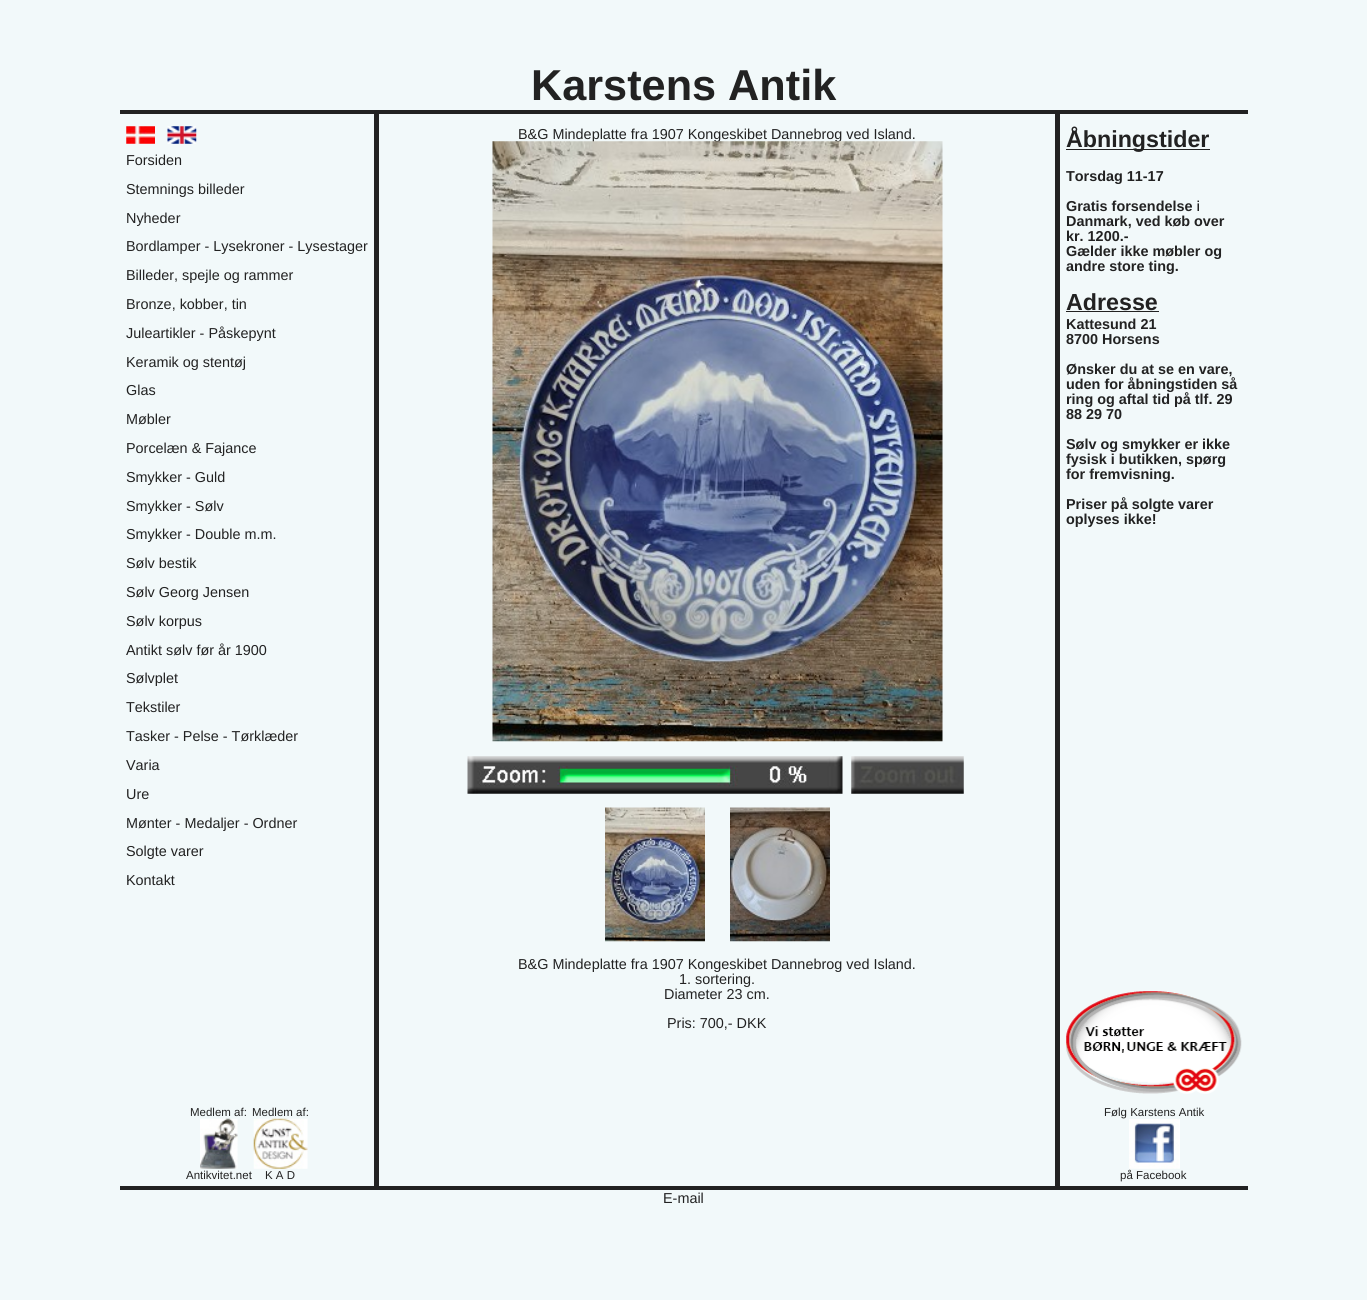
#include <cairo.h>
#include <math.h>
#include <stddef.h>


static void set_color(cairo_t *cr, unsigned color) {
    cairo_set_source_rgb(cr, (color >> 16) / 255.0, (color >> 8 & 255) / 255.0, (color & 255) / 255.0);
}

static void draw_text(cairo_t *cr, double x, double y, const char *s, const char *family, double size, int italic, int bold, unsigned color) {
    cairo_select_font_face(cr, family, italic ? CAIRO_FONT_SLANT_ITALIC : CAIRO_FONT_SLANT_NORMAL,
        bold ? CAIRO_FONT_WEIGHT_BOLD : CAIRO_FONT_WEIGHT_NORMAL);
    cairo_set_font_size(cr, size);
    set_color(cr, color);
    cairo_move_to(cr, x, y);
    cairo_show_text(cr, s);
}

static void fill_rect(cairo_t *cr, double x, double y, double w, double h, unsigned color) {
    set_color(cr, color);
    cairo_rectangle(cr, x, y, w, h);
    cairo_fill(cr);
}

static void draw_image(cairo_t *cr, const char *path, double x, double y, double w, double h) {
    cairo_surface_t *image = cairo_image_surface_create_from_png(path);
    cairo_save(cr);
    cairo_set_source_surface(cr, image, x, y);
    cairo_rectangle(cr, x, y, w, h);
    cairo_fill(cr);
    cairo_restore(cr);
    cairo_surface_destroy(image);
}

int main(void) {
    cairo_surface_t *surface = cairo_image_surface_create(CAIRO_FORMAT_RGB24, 1367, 1300);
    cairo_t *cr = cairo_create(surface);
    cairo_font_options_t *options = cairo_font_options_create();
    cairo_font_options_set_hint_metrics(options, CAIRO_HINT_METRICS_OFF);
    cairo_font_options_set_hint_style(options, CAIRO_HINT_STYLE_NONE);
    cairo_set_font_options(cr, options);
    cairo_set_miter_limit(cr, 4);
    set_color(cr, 0xF2F9FA);
    cairo_paint(cr);
    fill_rect(cr, 120, 110, 1128, 4, 0x222222);
    draw_text(cr, 531, 100, "Karstens Antik", "Liberation Sans", 43.25, 0, 1, 0x222222);
    fill_rect(cr, 374, 114, 5, 1072, 0x222222);
    draw_image(cr, "assets/img1.png", 126, 126, 29, 18);
    draw_image(cr, "assets/img2.png", 167, 126, 30, 18);
    draw_text(cr, 126, 165, "Forsiden", "Liberation Sans", 14.4, 0, 0, 0x222222);
    draw_text(cr, 126, 194, "Stemnings billeder", "Liberation Sans", 14.4, 0, 0, 0x222222);
    draw_text(cr, 126, 223, "Nyheder", "Liberation Sans", 14.4, 0, 0, 0x222222);
    draw_text(cr, 126, 251, "Bordlamper - Lysekroner - Lysestager", "Liberation Sans", 14.4, 0, 0, 0x222222);
    draw_text(cr, 126, 280, "Billeder, spejle og rammer", "Liberation Sans", 14.4, 0, 0, 0x222222);
    draw_text(cr, 126, 309, "Bronze, kobber, tin", "Liberation Sans", 14.4, 0, 0, 0x222222);
    draw_text(cr, 126, 338, "Juleartikler - Påskepynt", "Liberation Sans", 14.4, 0, 0, 0x222222);
    draw_text(cr, 126, 367, "Keramik og stentøj", "Liberation Sans", 14.4, 0, 0, 0x222222);
    draw_text(cr, 126, 395, "Glas", "Liberation Sans", 14.4, 0, 0, 0x222222);
    draw_text(cr, 126, 424, "Møbler", "Liberation Sans", 14.4, 0, 0, 0x222222);
    draw_text(cr, 126, 453, "Porcelæn & Fajance", "Liberation Sans", 14.4, 0, 0, 0x222222);
    draw_text(cr, 126, 482, "Smykker - Guld", "Liberation Sans", 14.4, 0, 0, 0x222222);
    draw_text(cr, 126, 511, "Smykker - Sølv", "Liberation Sans", 14.4, 0, 0, 0x222222);
    draw_text(cr, 126, 539, "Smykker - Double m.m.", "Liberation Sans", 14.4, 0, 0, 0x222222);
    draw_text(cr, 126, 568, "Sølv bestik", "Liberation Sans", 14.4, 0, 0, 0x222222);
    draw_text(cr, 126, 597, "Sølv Georg Jensen", "Liberation Sans", 14.4, 0, 0, 0x222222);
    draw_text(cr, 126, 626, "Sølv korpus", "Liberation Sans", 14.4, 0, 0, 0x222222);
    draw_text(cr, 126, 655, "Antikt sølv før år 1900", "Liberation Sans", 14.4, 0, 0, 0x222222);
    draw_text(cr, 126, 683, "Sølvplet", "Liberation Sans", 14.4, 0, 0, 0x222222);
    draw_text(cr, 126, 712, "Tekstiler", "Liberation Sans", 14.4, 0, 0, 0x222222);
    draw_text(cr, 126, 741, "Tasker - Pelse - Tørklæder", "Liberation Sans", 14.4, 0, 0, 0x222222);
    draw_text(cr, 126, 770, "Varia", "Liberation Sans", 14.4, 0, 0, 0x222222);
    draw_text(cr, 126, 799, "Ure", "Liberation Sans", 14.4, 0, 0, 0x222222);
    draw_text(cr, 126, 828, "Mønter - Medaljer - Ordner", "Liberation Sans", 14.4, 0, 0, 0x222222);
    draw_text(cr, 126, 856, "Solgte varer", "Liberation Sans", 14.4, 0, 0, 0x222222);
    draw_text(cr, 126, 885, "Kontakt", "Liberation Sans", 14.4, 0, 0, 0x222222);
    draw_text(cr, 190, 1116, "Medlem af:", "Liberation Sans", 11.5, 0, 0, 0x222222);
    draw_image(cr, "assets/img3.png", 200, 1118, 38, 51);
    draw_text(cr, 186, 1179, "Antikvitet.net", "Liberation Sans", 11.5, 0, 0, 0x222222);
    draw_text(cr, 252, 1116, "Medlem af:", "Liberation Sans", 11.5, 0, 0, 0x222222);
    draw_image(cr, "assets/img4.png", 253, 1118, 55, 51);
    draw_text(cr, 265, 1179, "K A D", "Liberation Sans", 11.5, 0, 0, 0x222222);
    draw_text(cr, 518, 139, "B&G Mindeplatte fra 1907 Kongeskibet Dannebrog ved Island.", "Liberation Sans", 14.4, 0, 0, 0x222222);
    draw_image(cr, "assets/img5.png", 492, 141, 451, 601);
    draw_image(cr, "assets/img6.png", 467, 756, 376, 38);
    draw_image(cr, "assets/img7.png", 851, 756, 113, 38);
    draw_image(cr, "assets/img8.png", 605, 807, 100, 135);
    draw_image(cr, "assets/img9.png", 730, 807, 100, 135);
    draw_text(cr, 518, 969, "B&G Mindeplatte fra 1907 Kongeskibet Dannebrog ved Island.", "Liberation Sans", 14.4, 0, 0, 0x222222);
    draw_text(cr, 679, 984, "1. sortering.", "Liberation Sans", 14.4, 0, 0, 0x222222);
    draw_text(cr, 664, 999, "Diameter 23 cm.", "Liberation Sans", 14.4, 0, 0, 0x222222);
    draw_text(cr, 667, 1028, "Pris: 700,- DKK", "Liberation Sans", 14.4, 0, 0, 0x222222);
    fill_rect(cr, 1055, 114, 5, 1072, 0x222222);
    fill_rect(cr, 1066, 149, 144, 1, 0x222222);
    draw_text(cr, 1066, 147, "Åbningstider", "Liberation Sans", 23.25, 0, 1, 0x222222);
    draw_text(cr, 1066, 181, "Torsdag 11-17", "Liberation Sans", 14.4, 0, 1, 0x222222);
    draw_text(cr, 1066, 211, "Gratis forsendelse i", "Liberation Sans", 14.4, 0, 1, 0x222222);
    draw_text(cr, 1066, 226, "Danmark, ved køb over", "Liberation Sans", 14.4, 0, 1, 0x222222);
    draw_text(cr, 1066, 241, "kr. 1200.-", "Liberation Sans", 14.4, 0, 1, 0x222222);
    draw_text(cr, 1066, 256, "Gælder ikke møbler og", "Liberation Sans", 14.4, 0, 1, 0x222222);
    draw_text(cr, 1066, 271, "andre store ting.", "Liberation Sans", 14.4, 0, 1, 0x222222);
    draw_text(cr, 1066, 310, "Adresse", "Liberation Sans", 23.25, 0, 1, 0x222222);
    fill_rect(cr, 1066, 311, 93, 1, 0x222222);
    draw_text(cr, 1066, 329, "Kattesund 21", "Liberation Sans", 14.4, 0, 1, 0x222222);
    draw_text(cr, 1066, 344, "8700 Horsens", "Liberation Sans", 14.4, 0, 1, 0x222222);
    draw_text(cr, 1066, 374, "Ønsker du at se en vare,", "Liberation Sans", 14.4, 0, 1, 0x222222);
    draw_text(cr, 1066, 389, "uden for åbningstiden så", "Liberation Sans", 14.4, 0, 1, 0x222222);
    draw_text(cr, 1066, 404, "ring og aftal tid på tlf. 29", "Liberation Sans", 14.4, 0, 1, 0x222222);
    draw_text(cr, 1066, 419, "88 29 70", "Liberation Sans", 14.4, 0, 1, 0x222222);
    draw_text(cr, 1066, 449, "Sølv og smykker er ikke", "Liberation Sans", 14.4, 0, 1, 0x222222);
    draw_text(cr, 1066, 464, "fysisk i butikken, spørg", "Liberation Sans", 14.4, 0, 1, 0x222222);
    draw_text(cr, 1066, 479, "for fremvisning.", "Liberation Sans", 14.4, 0, 1, 0x222222);
    draw_text(cr, 1066, 509, "Priser på solgte varer", "Liberation Sans", 14.4, 0, 1, 0x222222);
    draw_text(cr, 1066, 524, "oplyses ikke!", "Liberation Sans", 14.4, 0, 1, 0x222222);
    draw_image(cr, "assets/img10.png", 1066, 526, 2, 2);
    draw_image(cr, "assets/img11.png", 1066, 991, 176, 103);
    draw_text(cr, 1104, 1116, "Følg Karstens Antik", "Liberation Sans", 11.5, 0, 0, 0x222222);
    draw_image(cr, "assets/img12.png", 1129, 1119, 51, 50);
    draw_text(cr, 1120, 1179, "på Facebook", "Liberation Sans", 11.5, 0, 0, 0x222222);
    fill_rect(cr, 120, 1186, 1128, 4, 0x222222);
    draw_text(cr, 663, 1203, "E-mail", "Liberation Sans", 14.4, 0, 0, 0x222222);
    cairo_surface_write_to_png(surface, "output.png");
    cairo_font_options_destroy(options);
    cairo_destroy(cr);
    cairo_surface_destroy(surface);
    return 0;
}
